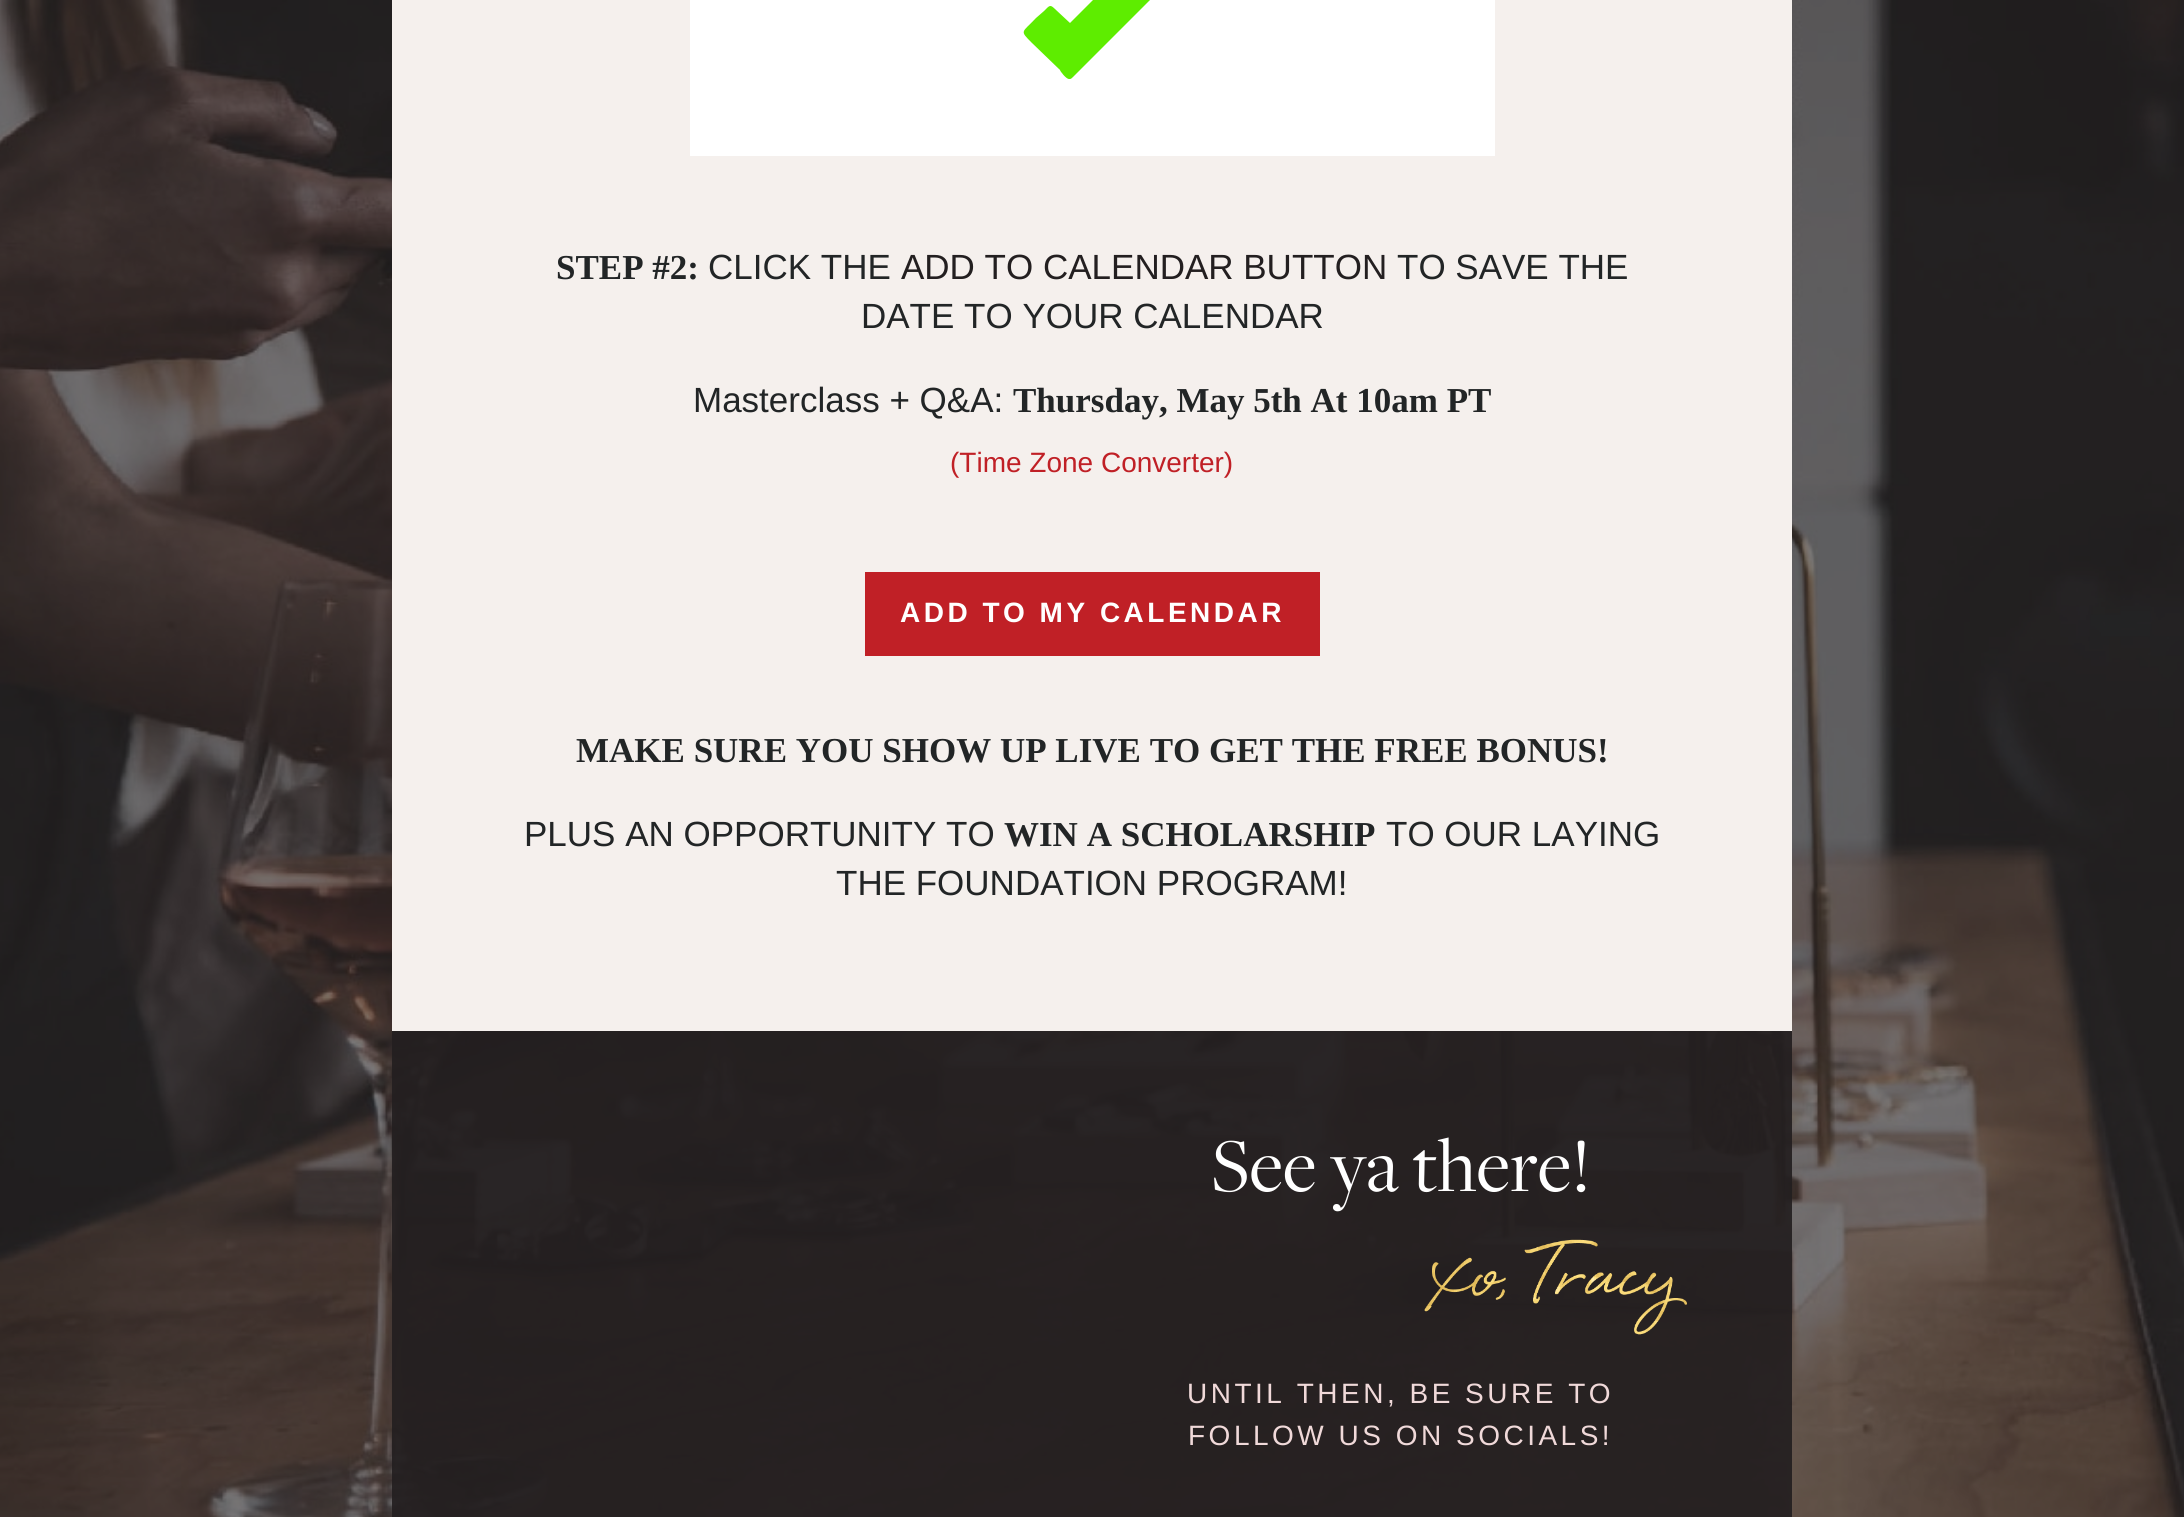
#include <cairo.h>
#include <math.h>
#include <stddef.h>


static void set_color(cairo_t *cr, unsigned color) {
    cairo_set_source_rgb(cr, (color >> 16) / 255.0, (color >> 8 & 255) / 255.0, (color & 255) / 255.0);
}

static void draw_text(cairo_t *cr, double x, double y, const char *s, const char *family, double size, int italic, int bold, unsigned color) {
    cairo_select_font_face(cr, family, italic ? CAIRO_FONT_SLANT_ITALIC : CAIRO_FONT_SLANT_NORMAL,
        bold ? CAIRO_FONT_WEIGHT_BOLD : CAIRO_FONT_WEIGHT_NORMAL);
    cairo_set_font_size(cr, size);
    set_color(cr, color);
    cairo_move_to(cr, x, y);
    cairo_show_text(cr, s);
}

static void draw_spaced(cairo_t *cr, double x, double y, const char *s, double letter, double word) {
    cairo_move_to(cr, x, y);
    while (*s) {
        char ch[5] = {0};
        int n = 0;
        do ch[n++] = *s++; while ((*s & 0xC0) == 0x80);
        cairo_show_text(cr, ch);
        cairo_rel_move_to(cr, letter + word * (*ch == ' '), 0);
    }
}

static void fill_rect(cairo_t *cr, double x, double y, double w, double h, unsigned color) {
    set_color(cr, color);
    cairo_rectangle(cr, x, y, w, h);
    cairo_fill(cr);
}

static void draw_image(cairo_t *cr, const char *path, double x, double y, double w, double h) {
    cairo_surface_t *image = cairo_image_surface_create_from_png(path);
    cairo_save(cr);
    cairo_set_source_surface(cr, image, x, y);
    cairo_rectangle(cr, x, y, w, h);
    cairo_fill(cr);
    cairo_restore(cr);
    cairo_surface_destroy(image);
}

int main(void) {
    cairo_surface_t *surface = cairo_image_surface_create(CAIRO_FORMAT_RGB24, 2184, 1517);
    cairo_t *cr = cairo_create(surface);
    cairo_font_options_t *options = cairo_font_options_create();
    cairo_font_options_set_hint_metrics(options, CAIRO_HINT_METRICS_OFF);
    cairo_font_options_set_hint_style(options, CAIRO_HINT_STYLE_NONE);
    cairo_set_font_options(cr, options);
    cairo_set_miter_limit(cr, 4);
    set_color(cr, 0xFFFFFF);
    cairo_paint(cr);
    draw_image(cr, "assets/img1.png", 0, 0, 2184, 1517);
    fill_rect(cr, 392, 0, 1400, 1031, 0xF5F0ED);
    fill_rect(cr, 690, 0, 805, 156, 0xFFFFFF);
    set_color(cr, 0x5EED00);
    cairo_new_path(cr);
    cairo_move_to(cr, 1158, -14);
    cairo_curve_to(cr, 1160, -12, 1160, -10, 1158, -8);
    cairo_line_to(cr, 1073, 77);
    cairo_curve_to(cr, 1072, 78, 1071, 79, 1070, 79);
    cairo_line_to(cr, 1069, 79);
    cairo_curve_to(cr, 1066, 79, 1060, 71, 1060, 70);
    cairo_line_to(cr, 1032, 43);
    cairo_curve_to(cr, 1019, 30, 1022, 33, 1036, 18);
    cairo_line_to(cr, 1044, 11);
    cairo_curve_to(cr, 1050, 5, 1050, 4, 1056, 10);
    cairo_line_to(cr, 1070, 23);
    cairo_line_to(cr, 1130, -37);
    cairo_curve_to(cr, 1133, -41, 1137, -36, 1139, -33);
    cairo_close_path(cr);
    cairo_fill(cr);
    draw_text(cr, 556, 279, "STEP #2:", "Liberation Serif", 35, 0, 1, 0x222526);
    draw_text(cr, 708, 279, "CLICK THE", "Liberation Sans", 35, 0, 0, 0x222526);
    draw_text(cr, 901, 279, "ADD TO CALENDAR BUTTON", "Liberation Sans", 35, 0, 0, 0x231F20);
    draw_text(cr, 1397, 279, "TO SAVE THE", "Liberation Sans", 35, 0, 0, 0x222526);
    draw_text(cr, 861, 328, "DATE TO YOUR CALENDAR", "Liberation Sans", 35, 0, 0, 0x222526);
    draw_text(cr, 693, 412, "Masterclass + Q&A:", "Liberation Sans", 35, 0, 0, 0x222526);
    draw_text(cr, 1013, 412, "Thursday, May 5th At 10am PT", "Liberation Serif", 35, 0, 1, 0x222526);
    draw_text(cr, 950, 472, "(Time Zone Converter)", "Liberation Sans", 28, 0, 0, 0xC02026);
    fill_rect(cr, 865, 572, 455, 84, 0xC02026);
    cairo_select_font_face(cr, "Liberation Sans", CAIRO_FONT_SLANT_NORMAL, CAIRO_FONT_WEIGHT_BOLD);
    set_color(cr, 0xFFFFFF);
    draw_spaced(cr, 900, 622, "ADD TO MY CALENDAR", 3.5, 0);
    draw_text(cr, 576, 762, "MAKE SURE YOU SHOW UP LIVE TO GET THE FREE BONUS!", "Liberation Serif", 35, 0, 1, 0x222526);
    draw_text(cr, 524, 846, "PLUS AN OPPORTUNITY TO", "Liberation Sans", 35, 0, 0, 0x222526);
    draw_text(cr, 1004, 846, "WIN A SCHOLARSHIP", "Liberation Serif", 35, 0, 1, 0x222526);
    draw_text(cr, 1386, 846, "TO OUR LAYING", "Liberation Sans", 35, 0, 0, 0x222526);
    draw_text(cr, 836, 895, "THE FOUNDATION PROGRAM!", "Liberation Sans", 35, 0, 0, 0x222526);
    cairo_set_source_rgba(cr, 0.137, 0.122, 0.125, 0.92);
    cairo_rectangle(cr, 392, 1031, 1400, 486);
    cairo_fill(cr);
    draw_text(cr, 1211, 1191, "See ya there!", "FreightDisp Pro", 78.75, 0, 0, 0xFFFFFF);
    draw_image(cr, "assets/img2.png", 1424, 1239, 263, 96);
    cairo_select_font_face(cr, "Liberation Sans", CAIRO_FONT_SLANT_NORMAL, CAIRO_FONT_WEIGHT_NORMAL);
    cairo_set_font_size(cr, 28);
    set_color(cr, 0xF0D9D9);
    draw_spaced(cr, 1187, 1403, "UNTIL THEN, BE SURE TO", 3.5, 0);
    draw_spaced(cr, 1188, 1445, "FOLLOW US ON SOCIALS!", 3.5, 0);
    cairo_surface_write_to_png(surface, "output.png");
    cairo_font_options_destroy(options);
    cairo_destroy(cr);
    cairo_surface_destroy(surface);
    return 0;
}
